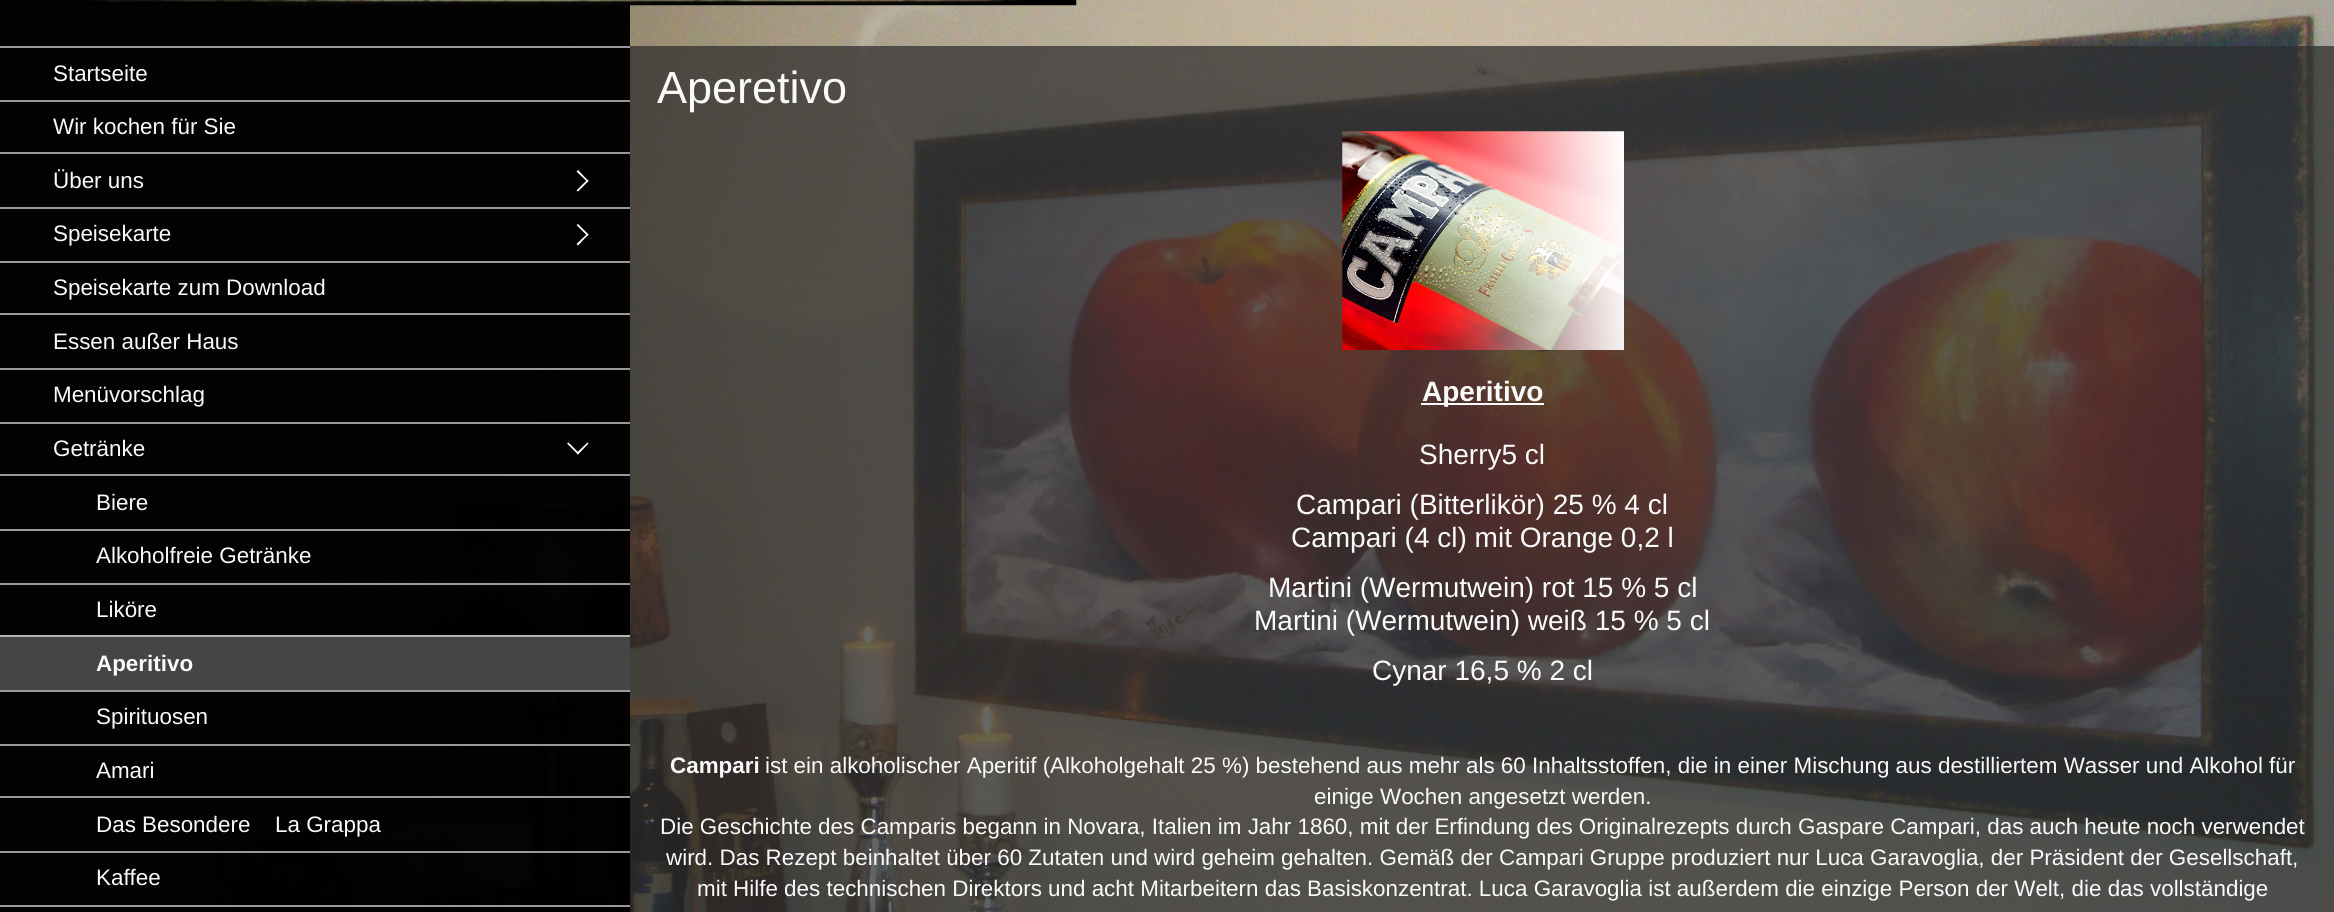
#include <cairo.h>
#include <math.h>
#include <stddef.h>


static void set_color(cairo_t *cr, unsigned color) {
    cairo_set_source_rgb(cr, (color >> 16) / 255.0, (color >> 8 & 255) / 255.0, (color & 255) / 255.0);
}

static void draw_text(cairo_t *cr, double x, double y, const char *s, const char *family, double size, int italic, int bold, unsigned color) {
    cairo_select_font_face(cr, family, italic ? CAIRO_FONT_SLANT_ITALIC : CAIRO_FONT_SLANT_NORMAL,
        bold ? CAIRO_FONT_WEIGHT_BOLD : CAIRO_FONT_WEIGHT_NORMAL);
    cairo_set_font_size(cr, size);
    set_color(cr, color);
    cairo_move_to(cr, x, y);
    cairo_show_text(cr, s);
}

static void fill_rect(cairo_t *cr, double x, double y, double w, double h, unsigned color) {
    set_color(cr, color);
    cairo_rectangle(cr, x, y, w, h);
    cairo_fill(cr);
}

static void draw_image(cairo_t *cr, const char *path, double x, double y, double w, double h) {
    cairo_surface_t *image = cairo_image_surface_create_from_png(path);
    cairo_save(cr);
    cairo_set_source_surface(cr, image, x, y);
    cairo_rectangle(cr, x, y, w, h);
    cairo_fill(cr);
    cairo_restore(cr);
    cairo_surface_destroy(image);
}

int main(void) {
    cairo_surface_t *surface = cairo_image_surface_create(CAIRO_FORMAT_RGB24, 2334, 912);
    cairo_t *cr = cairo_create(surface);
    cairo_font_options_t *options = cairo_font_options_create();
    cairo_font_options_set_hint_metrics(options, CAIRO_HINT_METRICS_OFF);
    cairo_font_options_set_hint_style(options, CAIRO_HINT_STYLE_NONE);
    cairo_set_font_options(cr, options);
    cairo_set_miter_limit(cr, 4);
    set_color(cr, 0xFFFFFF);
    cairo_paint(cr);
    draw_image(cr, "assets/img1.png", 0, 0, 2334, 912);
    cairo_set_source_rgba(cr, 0, 0, 0, 0.98);
    cairo_rectangle(cr, 0, 0, 630, 912);
    cairo_fill(cr);
    draw_image(cr, "assets/img2.png", 83, 0, 994, 6);
    fill_rect(cr, 0, 46, 630, 2, 0x9A9A9A);
    draw_text(cr, 53, 81, "Startseite", "Liberation Sans", 22.4, 0, 0, 0xFAFAFA);
    fill_rect(cr, 0, 100, 630, 2, 0x9A9A9A);
    draw_text(cr, 53, 134, "Wir kochen für Sie", "Liberation Sans", 22.4, 0, 0, 0xFAFAFA);
    fill_rect(cr, 0, 152, 630, 2, 0x9A9A9A);
    draw_text(cr, 53, 188, "Über uns", "Liberation Sans", 22.4, 0, 0, 0xFAFAFA);
    set_color(cr, 0xFFFFFF);
    cairo_new_path(cr);
    cairo_move_to(cr, 578, 170);
    cairo_line_to(cr, 588.5, 181);
    cairo_line_to(cr, 587.5, 182);
    cairo_line_to(cr, 576.5, 171.5);
    cairo_close_path(cr);
    cairo_fill(cr);
    cairo_new_path(cr);
    cairo_move_to(cr, 587.5, 179.5);
    cairo_line_to(cr, 588.5, 181);
    cairo_line_to(cr, 578, 191.5);
    cairo_line_to(cr, 576.5, 190.5);
    cairo_close_path(cr);
    cairo_fill(cr);
    fill_rect(cr, 0, 207, 630, 2, 0x9A9A9A);
    draw_text(cr, 53, 241, "Speisekarte", "Liberation Sans", 22.4, 0, 0, 0xFAFAFA);
    set_color(cr, 0xFFFFFF);
    cairo_new_path(cr);
    cairo_move_to(cr, 578, 224);
    cairo_line_to(cr, 588.5, 234.5);
    cairo_line_to(cr, 587.5, 236);
    cairo_line_to(cr, 576.5, 225);
    cairo_close_path(cr);
    cairo_fill(cr);
    cairo_new_path(cr);
    cairo_move_to(cr, 587.5, 233.5);
    cairo_line_to(cr, 588.5, 234.5);
    cairo_line_to(cr, 578, 245.5);
    cairo_line_to(cr, 576.5, 244);
    cairo_close_path(cr);
    cairo_fill(cr);
    fill_rect(cr, 0, 261, 630, 2, 0x9A9A9A);
    draw_text(cr, 53, 295, "Speisekarte zum Download", "Liberation Sans", 22.4, 0, 0, 0xFAFAFA);
    fill_rect(cr, 0, 313, 630, 2, 0x9A9A9A);
    draw_text(cr, 53, 349, "Essen außer Haus", "Liberation Sans", 22.4, 0, 0, 0xFAFAFA);
    fill_rect(cr, 0, 368, 630, 2, 0x9A9A9A);
    draw_text(cr, 53, 402, "Menüvorschlag", "Liberation Sans", 22.4, 0, 0, 0xFAFAFA);
    fill_rect(cr, 0, 422, 630, 2, 0x9A9A9A);
    draw_text(cr, 53, 456, "Getränke", "Liberation Sans", 22.4, 0, 0, 0xFAFAFA);
    set_color(cr, 0xFFFFFF);
    cairo_new_path(cr);
    cairo_move_to(cr, 588.5, 443.5);
    cairo_line_to(cr, 578, 454.5);
    cairo_line_to(cr, 576.5, 453);
    cairo_line_to(cr, 587.5, 442.5);
    cairo_close_path(cr);
    cairo_fill(cr);
    cairo_new_path(cr);
    cairo_move_to(cr, 579, 453);
    cairo_line_to(cr, 578, 454.5);
    cairo_line_to(cr, 567, 443.5);
    cairo_line_to(cr, 568.5, 442.5);
    cairo_close_path(cr);
    cairo_fill(cr);
    fill_rect(cr, 0, 474, 630, 2, 0x9A9A9A);
    draw_text(cr, 96, 510, "Biere", "Liberation Sans", 22.4, 0, 0, 0xFAFAFA);
    cairo_set_source_rgba(cr, 1, 1, 1, 0.6);
    cairo_rectangle(cr, 0, 529, 630, 2);
    cairo_fill(cr);
    draw_text(cr, 96, 563, "Alkoholfreie Getränke", "Liberation Sans", 22.4, 0, 0, 0xFAFAFA);
    cairo_set_source_rgba(cr, 1, 1, 1, 0.6);
    cairo_rectangle(cr, 0, 583, 630, 2);
    cairo_fill(cr);
    draw_text(cr, 96, 617, "Liköre", "Liberation Sans", 22.4, 0, 0, 0xFAFAFA);
    fill_rect(cr, 0, 637, 630, 53, 0x454545);
    fill_rect(cr, 0, 635, 630, 2, 0xB5B5B5);
    draw_text(cr, 96, 671, "Aperitivo", "Liberation Sans", 22.4, 0, 1, 0xFAFAFA);
    fill_rect(cr, 0, 690, 630, 2, 0x9A9A9A);
    draw_text(cr, 96, 724, "Spirituosen", "Liberation Sans", 22.4, 0, 0, 0xFAFAFA);
    cairo_set_source_rgba(cr, 1, 1, 1, 0.6);
    cairo_rectangle(cr, 0, 744, 630, 2);
    cairo_fill(cr);
    draw_text(cr, 96, 778, "Amari", "Liberation Sans", 22.4, 0, 0, 0xFAFAFA);
    cairo_set_source_rgba(cr, 1, 1, 1, 0.6);
    cairo_rectangle(cr, 0, 796, 630, 2);
    cairo_fill(cr);
    draw_text(cr, 96, 832, "Das Besondere", "Liberation Sans", 22.4, 0, 0, 0xFAFAFA);
    draw_text(cr, 275, 832, "La Grappa", "Liberation Sans", 22.4, 0, 0, 0xFAFAFA);
    cairo_set_source_rgba(cr, 1, 1, 1, 0.6);
    cairo_rectangle(cr, 0, 851, 630, 2);
    cairo_fill(cr);
    draw_text(cr, 96, 885, "Kaffee", "Liberation Sans", 22.4, 0, 0, 0xFAFAFA);
    cairo_set_source_rgba(cr, 1, 1, 1, 0.6);
    cairo_rectangle(cr, 0, 905, 630, 2);
    cairo_fill(cr);
    cairo_set_source_rgba(cr, 0.18, 0.18, 0.18, 0.73);
    cairo_rectangle(cr, 630, 46, 1704, 866);
    cairo_fill(cr);
    draw_text(cr, 657, 103, "Aperetivo", "Liberation Sans", 45, 0, 0, 0xFAFAFA);
    draw_image(cr, "assets/img3.png", 1342, 131, 282, 219);
    fill_rect(cr, 1421, 403, 123, 2, 0xFAFAFA);
    draw_text(cr, 1422, 401, "Aperitivo", "Liberation Sans", 28, 0, 1, 0xFAFAFA);
    draw_text(cr, 1419, 464, "Sherry5 cl", "Liberation Sans", 28, 0, 0, 0xFAFAFA);
    draw_text(cr, 1296, 514, "Campari (Bitterlikör) 25 % 4 cl", "Liberation Sans", 28, 0, 0, 0xFAFAFA);
    draw_text(cr, 1291, 547, "Campari (4 cl) mit Orange 0,2 l", "Liberation Sans", 28, 0, 0, 0xFAFAFA);
    draw_text(cr, 1268, 597, "Martini (Wermutwein) rot 15 % 5 cl", "Liberation Sans", 28, 0, 0, 0xFAFAFA);
    draw_text(cr, 1254, 630, "Martini (Wermutwein) weiß 15 % 5 cl", "Liberation Sans", 28, 0, 0, 0xFAFAFA);
    draw_text(cr, 1372, 680, "Cynar 16,5 % 2 cl", "Liberation Sans", 28, 0, 0, 0xFAFAFA);
    draw_text(cr, 670, 773, "Campari", "Liberation Sans", 22.4, 0, 1, 0xFAFAFA);
    draw_text(cr, 765, 773, "ist ein alkoholischer Aperitif (Alkoholgehalt 25 %) bestehend aus mehr als 60 Inhaltsstoffen, die in einer Mischung aus destilliertem Wasser und Alkohol für", "Liberation Sans", 22.4, 0, 0, 0xFAFAFA);
    draw_text(cr, 1314, 804, "einige Wochen angesetzt werden.", "Liberation Sans", 22.4, 0, 0, 0xFAFAFA);
    draw_text(cr, 660, 834, "Die Geschichte des Camparis begann in Novara, Italien im Jahr 1860, mit der Erfindung des Originalrezepts durch Gaspare Campari, das auch heute noch verwendet", "Liberation Sans", 22.4, 0, 0, 0xFAFAFA);
    draw_text(cr, 666, 865, "wird. Das Rezept beinhaltet über 60 Zutaten und wird geheim gehalten. Gemäß der Campari Gruppe produziert nur Luca Garavoglia, der Präsident der Gesellschaft,", "Liberation Sans", 22.4, 0, 0, 0xFAFAFA);
    draw_text(cr, 697, 896, "mit Hilfe des technischen Direktors und acht Mitarbeitern das Basiskonzentrat. Luca Garavoglia ist außerdem die einzige Person der Welt, die das vollständige", "Liberation Sans", 22.4, 0, 0, 0xFAFAFA);
    cairo_surface_write_to_png(surface, "output.png");
    cairo_font_options_destroy(options);
    cairo_destroy(cr);
    cairo_surface_destroy(surface);
    return 0;
}
